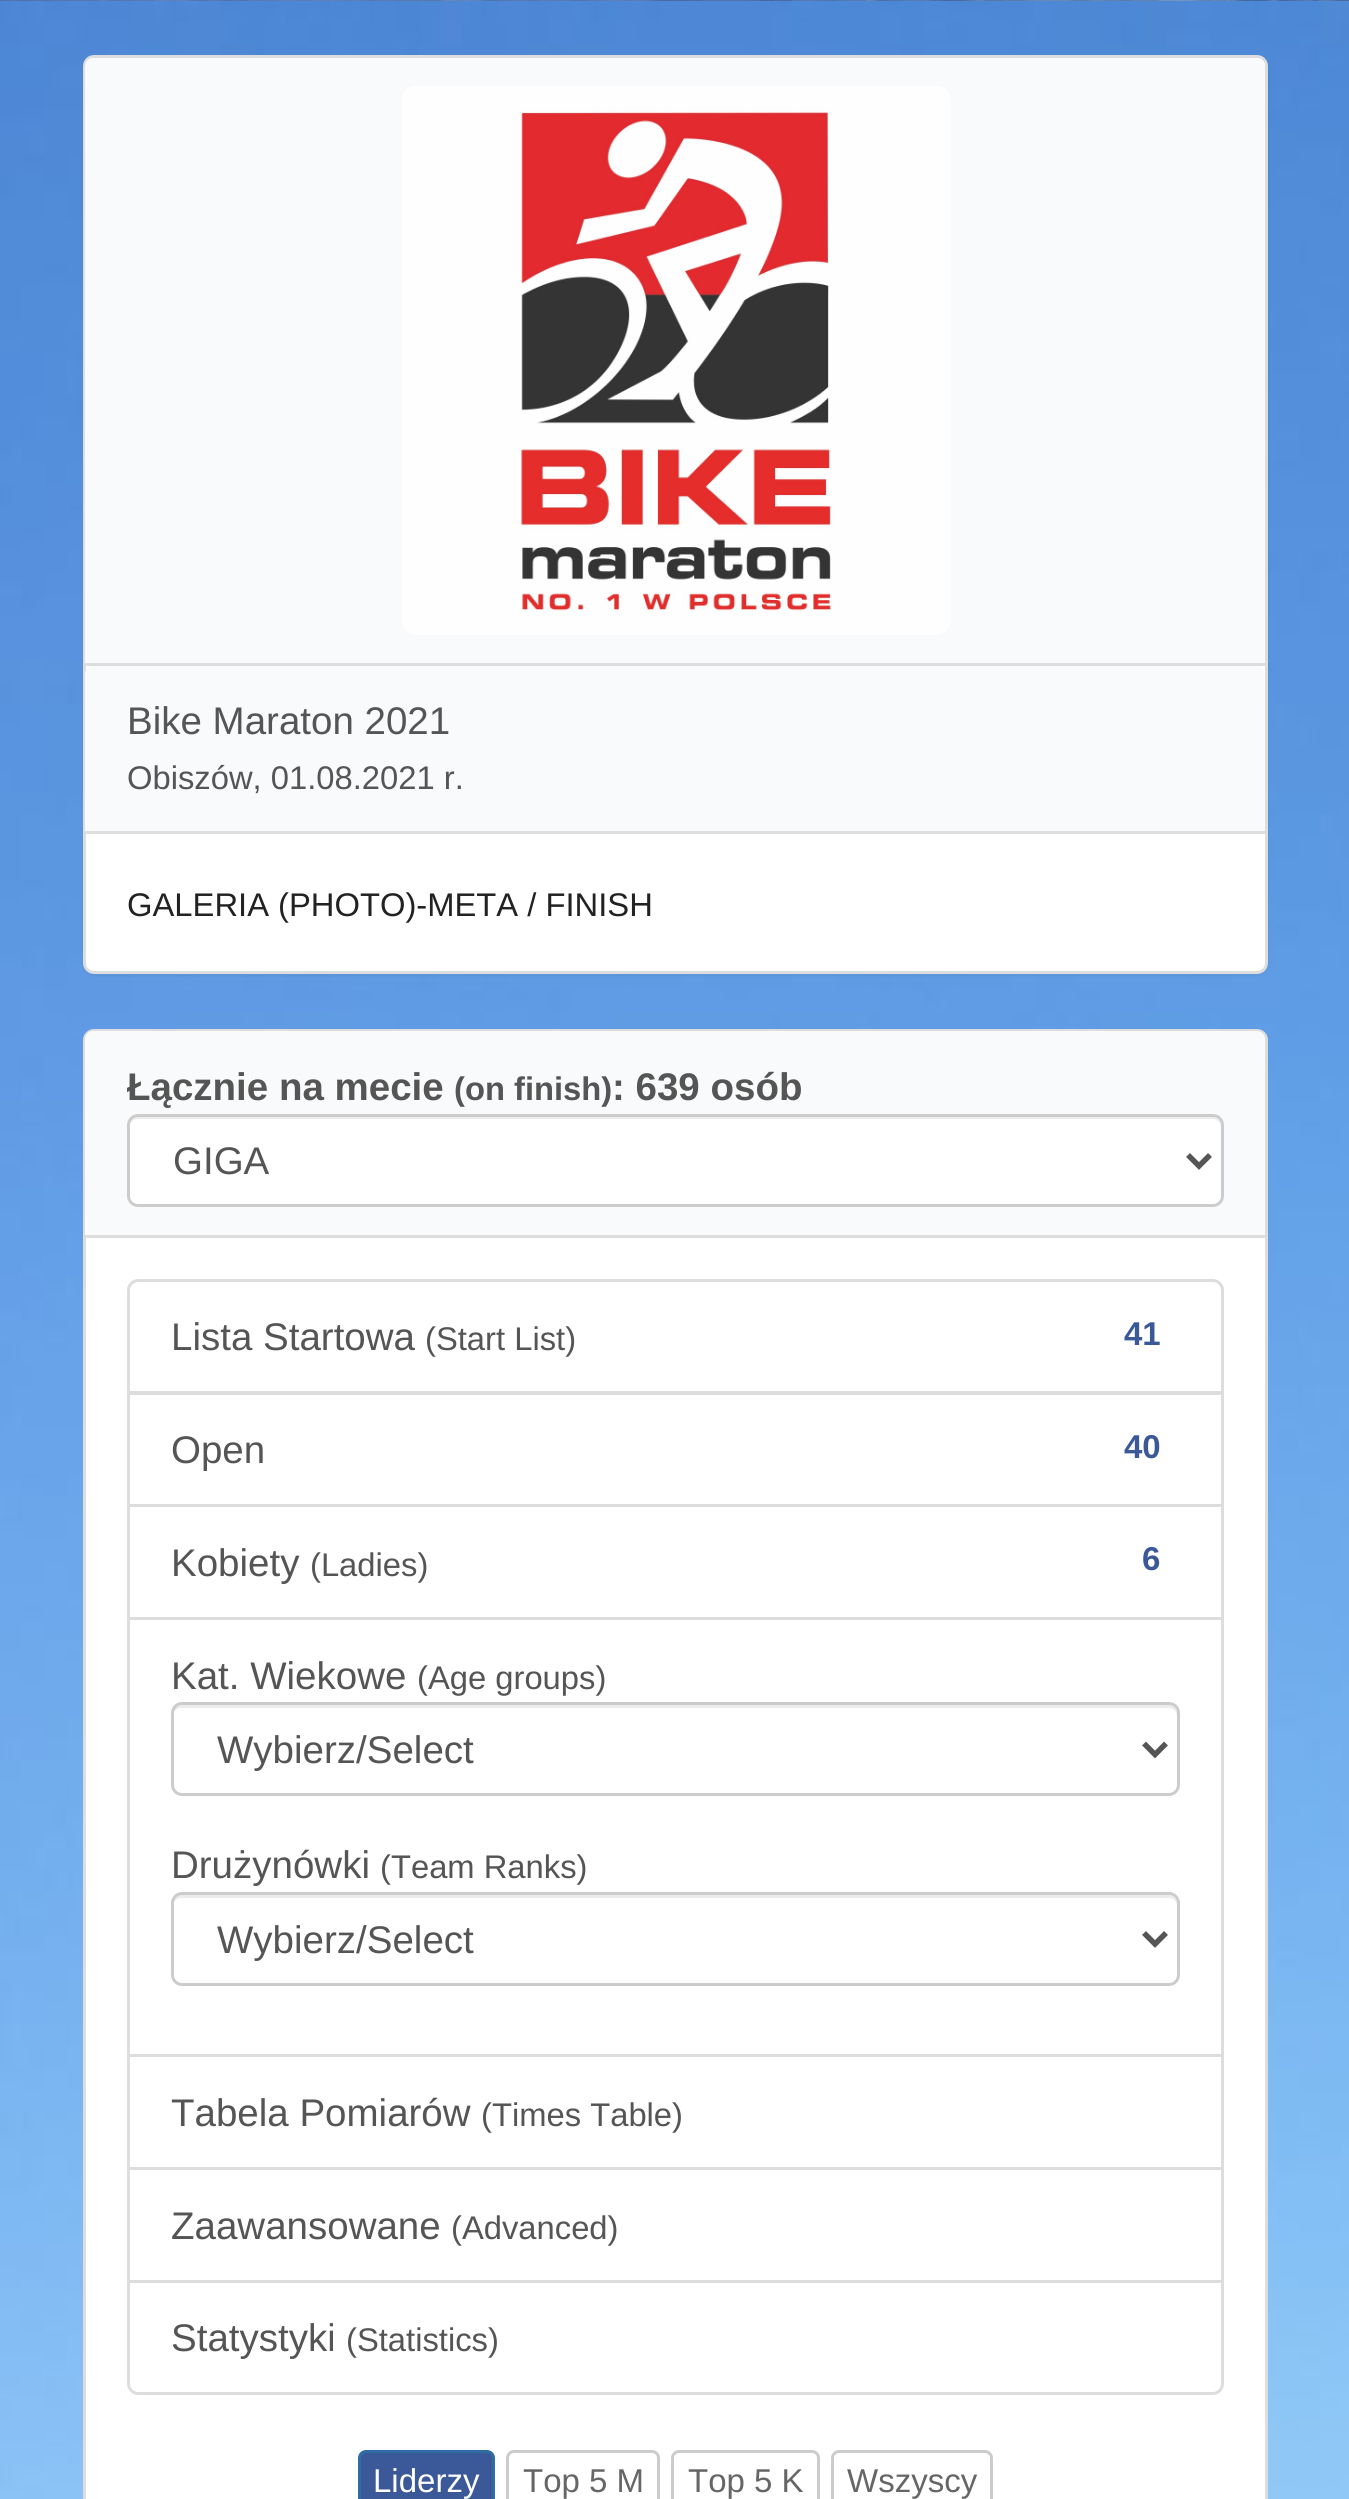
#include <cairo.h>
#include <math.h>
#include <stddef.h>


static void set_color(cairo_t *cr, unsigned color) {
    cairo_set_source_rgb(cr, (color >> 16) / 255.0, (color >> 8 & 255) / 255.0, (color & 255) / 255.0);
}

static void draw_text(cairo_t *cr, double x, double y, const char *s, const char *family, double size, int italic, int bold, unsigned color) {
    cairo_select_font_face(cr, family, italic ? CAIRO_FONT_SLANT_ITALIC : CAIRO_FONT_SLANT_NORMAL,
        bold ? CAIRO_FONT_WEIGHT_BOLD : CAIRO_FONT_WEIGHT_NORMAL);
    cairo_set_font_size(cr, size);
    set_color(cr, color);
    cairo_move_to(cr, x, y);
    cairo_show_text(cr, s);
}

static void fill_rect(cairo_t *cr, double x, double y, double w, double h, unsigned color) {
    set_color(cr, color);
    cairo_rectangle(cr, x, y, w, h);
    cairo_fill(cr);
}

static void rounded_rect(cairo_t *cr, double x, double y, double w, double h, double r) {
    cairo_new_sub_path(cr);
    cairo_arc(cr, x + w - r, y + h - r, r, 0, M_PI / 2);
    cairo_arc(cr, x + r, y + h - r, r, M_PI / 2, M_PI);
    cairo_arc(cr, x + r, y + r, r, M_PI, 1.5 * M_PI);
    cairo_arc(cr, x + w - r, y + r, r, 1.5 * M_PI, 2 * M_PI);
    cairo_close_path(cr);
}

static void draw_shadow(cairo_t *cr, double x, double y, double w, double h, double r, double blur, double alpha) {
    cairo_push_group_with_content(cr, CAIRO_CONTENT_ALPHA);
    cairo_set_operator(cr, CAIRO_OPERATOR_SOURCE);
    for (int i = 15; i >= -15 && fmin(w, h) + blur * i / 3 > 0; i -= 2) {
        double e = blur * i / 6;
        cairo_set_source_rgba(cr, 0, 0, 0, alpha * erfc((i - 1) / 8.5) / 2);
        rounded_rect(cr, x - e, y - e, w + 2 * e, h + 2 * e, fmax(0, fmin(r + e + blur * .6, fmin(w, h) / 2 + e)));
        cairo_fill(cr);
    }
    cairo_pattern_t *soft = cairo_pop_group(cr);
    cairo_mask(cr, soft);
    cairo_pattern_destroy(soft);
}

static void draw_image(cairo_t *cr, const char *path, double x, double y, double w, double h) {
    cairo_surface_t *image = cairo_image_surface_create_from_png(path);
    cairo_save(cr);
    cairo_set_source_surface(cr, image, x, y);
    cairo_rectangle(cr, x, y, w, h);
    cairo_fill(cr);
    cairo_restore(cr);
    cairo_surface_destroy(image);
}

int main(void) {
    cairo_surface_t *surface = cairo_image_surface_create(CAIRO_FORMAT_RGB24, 1349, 2499);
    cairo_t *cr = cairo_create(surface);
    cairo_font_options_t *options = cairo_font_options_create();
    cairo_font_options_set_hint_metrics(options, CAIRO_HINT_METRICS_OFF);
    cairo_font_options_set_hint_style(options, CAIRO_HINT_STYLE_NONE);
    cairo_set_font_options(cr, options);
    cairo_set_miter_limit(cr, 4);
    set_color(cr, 0xFFFFFF);
    cairo_paint(cr);
    draw_image(cr, "assets/img1.png", 0, 0, 1349, 2499);
    set_color(cr, 0x000000);
    draw_shadow(cr, 83, 58, 1185, 918, 11, 1.5, 0.05);
    set_color(cr, 0xFFFFFF);
    rounded_rect(cr, 84.5, 56.5, 1182, 916, 9.5);
    cairo_fill_preserve(cr);
    set_color(cr, 0xDDDDDD);
    cairo_set_line_width(cr, 3);
    cairo_stroke(cr);
    set_color(cr, 0xF9FAFB);
    cairo_new_path(cr);
    cairo_move_to(cr, 93, 58);
    cairo_line_to(cr, 1257, 58);
    cairo_curve_to(cr, 1261.5, 58, 1265, 61.5, 1265, 66);
    cairo_line_to(cr, 1265, 666);
    cairo_line_to(cr, 85, 666);
    cairo_line_to(cr, 85, 66);
    cairo_curve_to(cr, 85, 61.5, 88.5, 58, 93, 58);
    cairo_close_path(cr);
    cairo_fill(cr);
    fill_rect(cr, 85, 663, 1180, 3, 0xDDDDDD);
    draw_image(cr, "assets/img2.png", 402, 86, 549, 549);
    set_color(cr, 0xF9FAFB);
    cairo_new_path(cr);
    cairo_move_to(cr, 93, 666);
    cairo_line_to(cr, 1257, 666);
    cairo_curve_to(cr, 1261.5, 666, 1265, 669.5, 1265, 674);
    cairo_line_to(cr, 1265, 833);
    cairo_line_to(cr, 85, 833);
    cairo_line_to(cr, 85, 674);
    cairo_curve_to(cr, 85, 669.5, 88.5, 666, 93, 666);
    cairo_close_path(cr);
    cairo_fill(cr);
    fill_rect(cr, 85, 831, 1180, 3, 0xDDDDDD);
    draw_text(cr, 127, 734, "Bike Maraton 2021", "Liberation Sans", 38.5, 0, 0, 0x555555);
    draw_text(cr, 127, 789, "Obiszów, 01.08.2021 r.", "Liberation Sans", 32.75, 0, 0, 0x555555);
    draw_text(cr, 127, 916, "GALERIA (PHOTO)-META / FINISH", "Liberation Sans", 32.75, 0, 0, 0x222222);
    set_color(cr, 0xFFFFFF);
    rounded_rect(cr, 84.5, 1030.5, 1182, 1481, 9.5);
    cairo_fill_preserve(cr);
    set_color(cr, 0xDDDDDD);
    cairo_stroke(cr);
    set_color(cr, 0xF9FAFB);
    cairo_new_path(cr);
    cairo_move_to(cr, 93, 1031);
    cairo_line_to(cr, 1257, 1031);
    cairo_curve_to(cr, 1261.5, 1031, 1265, 1034.5, 1265, 1039);
    cairo_line_to(cr, 1265, 1238);
    cairo_line_to(cr, 85, 1238);
    cairo_line_to(cr, 85, 1039);
    cairo_curve_to(cr, 85, 1034.5, 88.5, 1031, 93, 1031);
    cairo_close_path(cr);
    cairo_fill(cr);
    fill_rect(cr, 85, 1235, 1180, 3, 0xDDDDDD);
    draw_text(cr, 127, 1100, "Łącznie na mecie", "Liberation Sans", 38.5, 0, 1, 0x555555);
    draw_text(cr, 454, 1100, "(on finish)", "Liberation Sans", 32.75, 0, 1, 0x555555);
    draw_text(cr, 612, 1100, ": 639 osób", "Liberation Sans", 38.5, 0, 1, 0x555555);
    set_color(cr, 0xFFFFFF);
    rounded_rect(cr, 127, 1114, 1097, 93, 11);
    cairo_fill(cr);
    set_color(cr, 0xECECEC);
    cairo_new_path(cr);
    cairo_move_to(cr, 138, 1119);
    cairo_line_to(cr, 1213, 1119);
    cairo_curve_to(cr, 1217, 1119, 1221, 1123, 1221, 1128);
    cairo_line_to(cr, 1221, 1125);
    cairo_curve_to(cr, 1221, 1121, 1217, 1117, 1213, 1117);
    cairo_line_to(cr, 137, 1117);
    cairo_curve_to(cr, 133, 1117, 129, 1121, 129, 1125);
    cairo_line_to(cr, 129, 1128);
    cairo_curve_to(cr, 129, 1123, 133, 1119, 138, 1119);
    cairo_close_path(cr);
    cairo_fill(cr);
    rounded_rect(cr, 128.5, 1115.5, 1094, 90, 9.5);
    set_color(cr, 0xCCCCCC);
    cairo_stroke(cr);
    cairo_new_path(cr);
    cairo_move_to(cr, 1188, 1155);
    cairo_line_to(cr, 1199, 1166);
    cairo_line_to(cr, 1210, 1155);
    set_color(cr, 0x555555);
    cairo_set_line_width(cr, 5.5);
    cairo_stroke(cr);
    draw_text(cr, 173, 1174, "GIGA", "Liberation Sans", 38.5, 0, 0, 0x555555);
    cairo_new_path(cr);
    cairo_move_to(cr, 138, 1280.5);
    cairo_line_to(cr, 1213, 1280.5);
    cairo_curve_to(cr, 1218, 1280.5, 1222.5, 1285, 1222.5, 1290);
    cairo_line_to(cr, 1222.5, 1392.5);
    cairo_line_to(cr, 128.5, 1392.5);
    cairo_line_to(cr, 128.5, 1290);
    cairo_curve_to(cr, 128.5, 1285, 133, 1280.5, 138, 1280.5);
    cairo_close_path(cr);
    set_color(cr, 0xDDDDDD);
    cairo_set_line_width(cr, 3);
    cairo_stroke(cr);
    draw_text(cr, 171, 1350, "Lista Startowa", "Liberation Sans", 38.5, 0, 0, 0x555555);
    draw_text(cr, 425, 1350, "(Start List)", "Liberation Sans", 32.75, 0, 0, 0x555555);
    draw_text(cr, 1124, 1345, "41", "Liberation Sans", 33, 0, 1, 0x3B5999);
    cairo_rectangle(cr, 128.5, 1393.5, 1094, 112);
    set_color(cr, 0xDDDDDD);
    cairo_stroke(cr);
    draw_text(cr, 171, 1463, "Open", "Liberation Sans", 38.5, 0, 0, 0x555555);
    draw_text(cr, 1124, 1458, "40", "Liberation Sans", 33, 0, 1, 0x3B5999);
    cairo_rectangle(cr, 128.5, 1505.5, 1094, 113);
    set_color(cr, 0xDDDDDD);
    cairo_stroke(cr);
    draw_text(cr, 171, 1576, "Kobiety", "Liberation Sans", 38.5, 0, 0, 0x555555);
    draw_text(cr, 310, 1576, "(Ladies)", "Liberation Sans", 32.75, 0, 0, 0x555555);
    draw_text(cr, 1142, 1570, "6", "Liberation Sans", 33, 0, 1, 0x3B5999);
    cairo_rectangle(cr, 128.5, 1618.5, 1094, 437);
    set_color(cr, 0xDDDDDD);
    cairo_stroke(cr);
    draw_text(cr, 171, 1689, "Kat. Wiekowe", "Liberation Sans", 38.5, 0, 0, 0x555555);
    draw_text(cr, 417, 1689, "(Age groups)", "Liberation Sans", 32.75, 0, 0, 0x555555);
    set_color(cr, 0xECECEC);
    cairo_new_path(cr);
    cairo_move_to(cr, 182, 1708);
    cairo_line_to(cr, 1169, 1708);
    cairo_curve_to(cr, 1173, 1708, 1177, 1711, 1177, 1716);
    cairo_line_to(cr, 1177, 1713);
    cairo_curve_to(cr, 1177, 1709, 1173, 1705, 1169, 1705);
    cairo_line_to(cr, 181, 1705);
    cairo_curve_to(cr, 177, 1705, 173, 1709, 173, 1713);
    cairo_line_to(cr, 173, 1716);
    cairo_curve_to(cr, 173, 1711, 177, 1708, 182, 1708);
    cairo_close_path(cr);
    cairo_fill(cr);
    rounded_rect(cr, 172.5, 1703.5, 1006, 91, 9.5);
    set_color(cr, 0xCCCCCC);
    cairo_stroke(cr);
    cairo_new_path(cr);
    cairo_move_to(cr, 1144, 1743.5);
    cairo_line_to(cr, 1155, 1754.5);
    cairo_line_to(cr, 1166, 1743.5);
    set_color(cr, 0x555555);
    cairo_set_line_width(cr, 5.5);
    cairo_stroke(cr);
    draw_text(cr, 217, 1763, "Wybierz/Select", "Liberation Sans", 38.5, 0, 0, 0x555555);
    draw_text(cr, 171, 1878, "Drużynówki", "Liberation Sans", 38.5, 0, 0, 0x555555);
    draw_text(cr, 380, 1878, "(Team Ranks)", "Liberation Sans", 32.75, 0, 0, 0x555555);
    set_color(cr, 0xECECEC);
    cairo_new_path(cr);
    cairo_move_to(cr, 182, 1898);
    cairo_line_to(cr, 1169, 1898);
    cairo_curve_to(cr, 1173, 1898, 1177, 1901, 1177, 1906);
    cairo_line_to(cr, 1177, 1903);
    cairo_curve_to(cr, 1177, 1899, 1173, 1895, 1169, 1895);
    cairo_line_to(cr, 181, 1895);
    cairo_curve_to(cr, 177, 1895, 173, 1899, 173, 1903);
    cairo_line_to(cr, 173, 1906);
    cairo_curve_to(cr, 173, 1901, 177, 1898, 182, 1898);
    cairo_close_path(cr);
    cairo_fill(cr);
    rounded_rect(cr, 172.5, 1893.5, 1006, 91, 9.5);
    set_color(cr, 0xCCCCCC);
    cairo_set_line_width(cr, 3);
    cairo_stroke(cr);
    cairo_new_path(cr);
    cairo_move_to(cr, 1144, 1933);
    cairo_line_to(cr, 1155, 1944);
    cairo_line_to(cr, 1166, 1933);
    set_color(cr, 0x555555);
    cairo_set_line_width(cr, 5.5);
    cairo_stroke(cr);
    draw_text(cr, 217, 1953, "Wybierz/Select", "Liberation Sans", 38.5, 0, 0, 0x555555);
    cairo_rectangle(cr, 128.5, 2055.5, 1094, 113);
    set_color(cr, 0xDDDDDD);
    cairo_set_line_width(cr, 3);
    cairo_stroke(cr);
    draw_text(cr, 171, 2126, "Tabela Pomiarów", "Liberation Sans", 38.5, 0, 0, 0x555555);
    draw_text(cr, 481, 2126, "(Times Table)", "Liberation Sans", 32.75, 0, 0, 0x555555);
    cairo_rectangle(cr, 128.5, 2168.5, 1094, 113);
    set_color(cr, 0xDDDDDD);
    cairo_stroke(cr);
    draw_text(cr, 171, 2239, "Zaawansowane", "Liberation Sans", 38.5, 0, 0, 0x555555);
    draw_text(cr, 451, 2239, "(Advanced)", "Liberation Sans", 32.75, 0, 0, 0x555555);
    set_color(cr, 0xFFFFFF);
    cairo_new_path(cr);
    cairo_move_to(cr, 128.5, 2281.5);
    cairo_line_to(cr, 1222.5, 2281.5);
    cairo_line_to(cr, 1222.5, 2384);
    cairo_curve_to(cr, 1222.5, 2389, 1218, 2393.5, 1213, 2393.5);
    cairo_line_to(cr, 138, 2393.5);
    cairo_curve_to(cr, 133, 2393.5, 128.5, 2389, 128.5, 2384);
    cairo_close_path(cr);
    cairo_fill_preserve(cr);
    set_color(cr, 0xDDDDDD);
    cairo_stroke(cr);
    draw_text(cr, 171, 2351, "Statystyki", "Liberation Sans", 38.5, 0, 0, 0x555555);
    draw_text(cr, 346, 2351, "(Statistics)", "Liberation Sans", 32.75, 0, 0, 0x555555);
    set_color(cr, 0x3B5999);
    rounded_rect(cr, 359.5, 2451.5, 134, 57, 6.5);
    cairo_fill_preserve(cr);
    set_color(cr, 0x2E6DA4);
    cairo_stroke(cr);
    draw_text(cr, 373, 2492, "Liderzy", "Liberation Sans", 33, 0, 0, 0xFFFFFE);
    rounded_rect(cr, 507.5, 2451.5, 151, 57, 6.5);
    set_color(cr, 0xCCCCCC);
    cairo_stroke(cr);
    draw_text(cr, 523, 2492, "Top 5 M", "Liberation Sans", 33, 0, 0, 0x666666);
    rounded_rect(cr, 672.5, 2451.5, 146, 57, 6.5);
    set_color(cr, 0xCCCCCC);
    cairo_stroke(cr);
    draw_text(cr, 688, 2492, "Top 5 K", "Liberation Sans", 33, 0, 0, 0x666666);
    rounded_rect(cr, 832.5, 2451.5, 159, 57, 6.5);
    set_color(cr, 0xCCCCCC);
    cairo_stroke(cr);
    draw_text(cr, 847, 2492, "Wszyscy", "Liberation Sans", 33, 0, 0, 0x666666);
    cairo_surface_write_to_png(surface, "output.png");
    cairo_font_options_destroy(options);
    cairo_destroy(cr);
    cairo_surface_destroy(surface);
    return 0;
}
